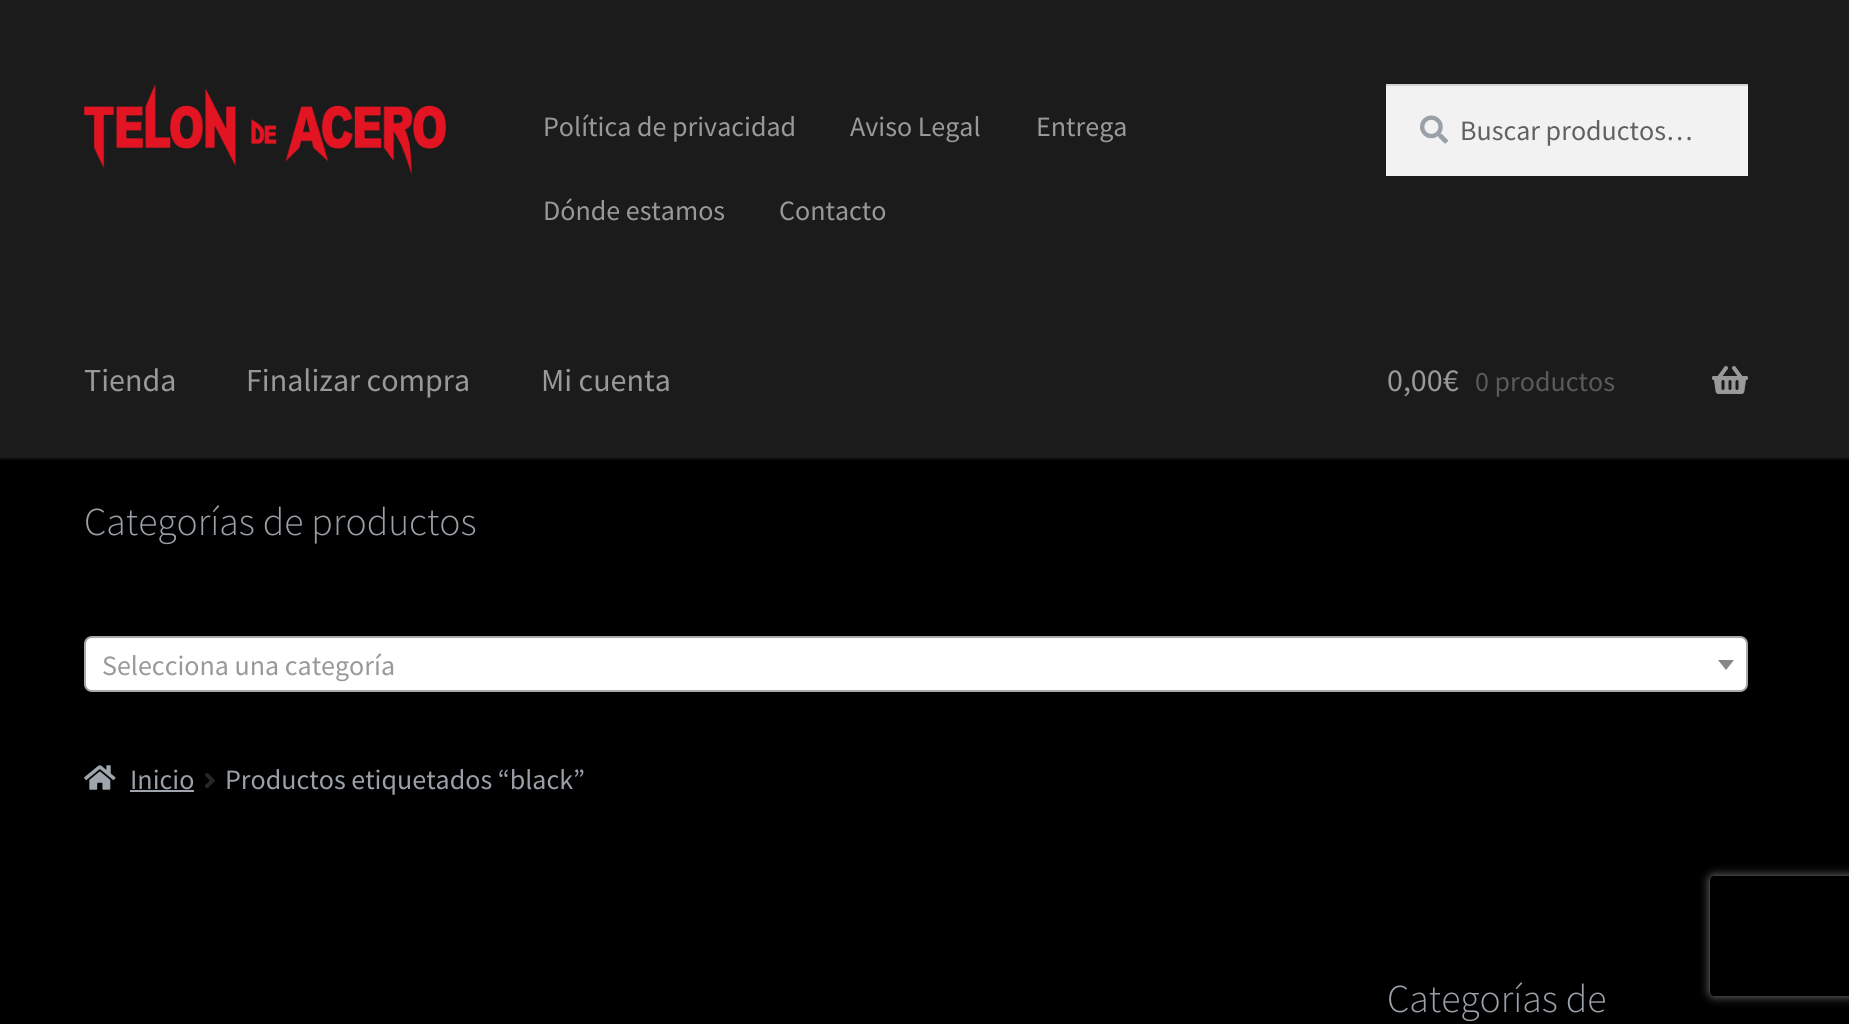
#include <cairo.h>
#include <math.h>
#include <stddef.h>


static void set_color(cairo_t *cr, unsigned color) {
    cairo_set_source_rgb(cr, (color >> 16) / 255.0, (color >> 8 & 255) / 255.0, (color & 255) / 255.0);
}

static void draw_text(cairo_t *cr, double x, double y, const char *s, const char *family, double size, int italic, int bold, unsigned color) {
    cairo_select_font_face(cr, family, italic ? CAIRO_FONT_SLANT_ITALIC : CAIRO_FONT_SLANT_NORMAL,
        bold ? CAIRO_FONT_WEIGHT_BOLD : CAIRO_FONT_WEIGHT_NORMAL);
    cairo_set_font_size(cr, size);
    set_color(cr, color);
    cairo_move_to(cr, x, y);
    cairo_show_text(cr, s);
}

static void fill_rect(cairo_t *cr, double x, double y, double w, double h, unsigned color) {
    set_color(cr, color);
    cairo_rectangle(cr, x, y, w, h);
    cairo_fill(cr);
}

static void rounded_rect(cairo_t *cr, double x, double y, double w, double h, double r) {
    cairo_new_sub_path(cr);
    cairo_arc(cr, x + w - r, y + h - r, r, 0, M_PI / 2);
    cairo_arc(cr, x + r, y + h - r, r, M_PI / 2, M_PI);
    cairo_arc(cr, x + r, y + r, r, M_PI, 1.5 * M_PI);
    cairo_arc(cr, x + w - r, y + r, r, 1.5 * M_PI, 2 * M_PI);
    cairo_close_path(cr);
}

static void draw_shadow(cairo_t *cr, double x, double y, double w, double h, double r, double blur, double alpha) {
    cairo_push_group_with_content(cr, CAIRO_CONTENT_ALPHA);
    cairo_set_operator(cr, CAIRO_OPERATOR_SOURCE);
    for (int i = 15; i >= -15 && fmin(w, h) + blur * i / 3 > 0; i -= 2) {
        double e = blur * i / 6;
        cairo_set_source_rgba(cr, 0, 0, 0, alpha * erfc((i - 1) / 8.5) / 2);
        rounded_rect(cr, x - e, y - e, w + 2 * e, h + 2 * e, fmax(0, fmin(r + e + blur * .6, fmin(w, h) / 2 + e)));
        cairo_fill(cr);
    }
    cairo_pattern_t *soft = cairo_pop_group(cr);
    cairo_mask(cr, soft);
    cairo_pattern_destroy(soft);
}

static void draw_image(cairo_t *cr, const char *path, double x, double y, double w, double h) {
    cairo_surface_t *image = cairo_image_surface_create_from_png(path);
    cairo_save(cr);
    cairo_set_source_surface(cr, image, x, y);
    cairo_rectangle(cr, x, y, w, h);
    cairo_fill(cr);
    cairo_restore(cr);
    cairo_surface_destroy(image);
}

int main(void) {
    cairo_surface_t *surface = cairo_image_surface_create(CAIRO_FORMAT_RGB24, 1849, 1024);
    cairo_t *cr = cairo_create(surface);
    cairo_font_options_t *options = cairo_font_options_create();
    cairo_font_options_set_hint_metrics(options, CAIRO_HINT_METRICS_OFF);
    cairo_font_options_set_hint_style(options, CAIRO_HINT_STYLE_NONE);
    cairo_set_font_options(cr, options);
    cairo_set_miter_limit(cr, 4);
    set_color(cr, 0x000000);
    cairo_paint(cr);
    fill_rect(cr, 0, 0, 1849, 458, 0x1B1B1B);
    fill_rect(cr, 0, 458, 1849, 2, 0x0C0C0C);
    draw_image(cr, "assets/img1.png", 84, 84, 362, 90);
    draw_text(cr, 543, 136, "Política de privacidad", "Source Sans Pro", 28, 0, 0, 0x999999);
    draw_text(cr, 850, 136, "Aviso Legal", "Source Sans Pro", 28, 0, 0, 0x999999);
    draw_text(cr, 1036, 136, "Entrega", "Source Sans Pro", 28, 0, 0, 0x999999);
    draw_text(cr, 543, 220, "Dónde estamos", "Source Sans Pro", 28, 0, 0, 0x999999);
    draw_text(cr, 779, 220, "Contacto", "Source Sans Pro", 28, 0, 0, 0x999999);
    fill_rect(cr, 1386, 86, 362, 90, 0xF2F2F2);
    draw_image(cr, "assets/img2.png", 1420, 115, 28, 29);
    fill_rect(cr, 1386, 84, 362, 2, 0xD4D4D4);
    draw_text(cr, 1460, 140, "Buscar productos…", "Source Sans Pro", 28, 0, 0, 0x616161);
    draw_text(cr, 84, 391, "Tienda", "Source Sans Pro", 32, 0, 0, 0x999999);
    draw_text(cr, 246, 391, "Finalizar compra", "Source Sans Pro", 32, 0, 0, 0x999999);
    draw_text(cr, 541, 391, "Mi cuenta", "Source Sans Pro", 32, 0, 0, 0x999999);
    draw_text(cr, 1387, 391, "0,00€", "Source Sans Pro", 32, 0, 0, 0x999999);
    draw_text(cr, 1475, 391, "0 productos", "Source Sans Pro", 28, 0, 0, 0x5A5A5A);
    draw_image(cr, "assets/img3.png", 1712, 366, 36, 28);
    draw_text(cr, 84, 535, "Categorías de productos", "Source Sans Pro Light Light", 39.6, 0, 0, 0x9AA0A7);
    set_color(cr, 0xFFFFFF);
    rounded_rect(cr, 85, 637, 1662, 54, 7);
    cairo_fill_preserve(cr);
    set_color(cr, 0xAAAAAA);
    cairo_stroke(cr);
    draw_text(cr, 102, 675, "Selecciona una categoría", "Source Sans Pro", 28, 0, 0, 0x999999);
    set_color(cr, 0x888888);
    cairo_new_path(cr);
    cairo_move_to(cr, 1718, 660);
    cairo_line_to(cr, 1734, 660);
    cairo_line_to(cr, 1726, 670);
    cairo_close_path(cr);
    cairo_fill(cr);
    draw_image(cr, "assets/img4.png", 84, 765, 32, 25);
    draw_text(cr, 130, 789, "Inicio", "Source Sans Pro", 28, 0, 0, 0x9AA0A7);
    fill_rect(cr, 130, 790, 64, 2, 0x9FA5AC);
    draw_image(cr, "assets/img5.png", 205, 773, 10, 16);
    draw_text(cr, 225, 789, "Productos etiquetados “black”", "Source Sans Pro", 28, 0, 0, 0x9AA0A7);
    draw_text(cr, 1387, 1012, "Categorías de", "Source Sans Pro Light Light", 39.6, 0, 0, 0x9AA0A7);
    cairo_save(cr);
    cairo_set_fill_rule(cr, CAIRO_FILL_RULE_EVEN_ODD);
    cairo_new_path(cr);
    cairo_move_to(cr, 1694, 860);
    cairo_line_to(cr, 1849, 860);
    cairo_line_to(cr, 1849, 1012);
    cairo_line_to(cr, 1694, 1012);
    cairo_close_path(cr);
    cairo_move_to(cr, 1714, 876);
    cairo_line_to(cr, 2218, 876);
    cairo_curve_to(cr, 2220, 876, 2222, 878, 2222, 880);
    cairo_line_to(cr, 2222, 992);
    cairo_curve_to(cr, 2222, 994, 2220, 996, 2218, 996);
    cairo_line_to(cr, 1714, 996);
    cairo_curve_to(cr, 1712, 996, 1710, 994, 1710, 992);
    cairo_line_to(cr, 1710, 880);
    cairo_curve_to(cr, 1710, 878, 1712, 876, 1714, 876);
    cairo_close_path(cr);
    cairo_clip(cr);
    set_color(cr, 0x808080);
    draw_shadow(cr, 1710, 876, 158, 120, 4, 5, 1);
    cairo_restore(cr);
    cairo_surface_write_to_png(surface, "output.png");
    cairo_font_options_destroy(options);
    cairo_destroy(cr);
    cairo_surface_destroy(surface);
    return 0;
}
